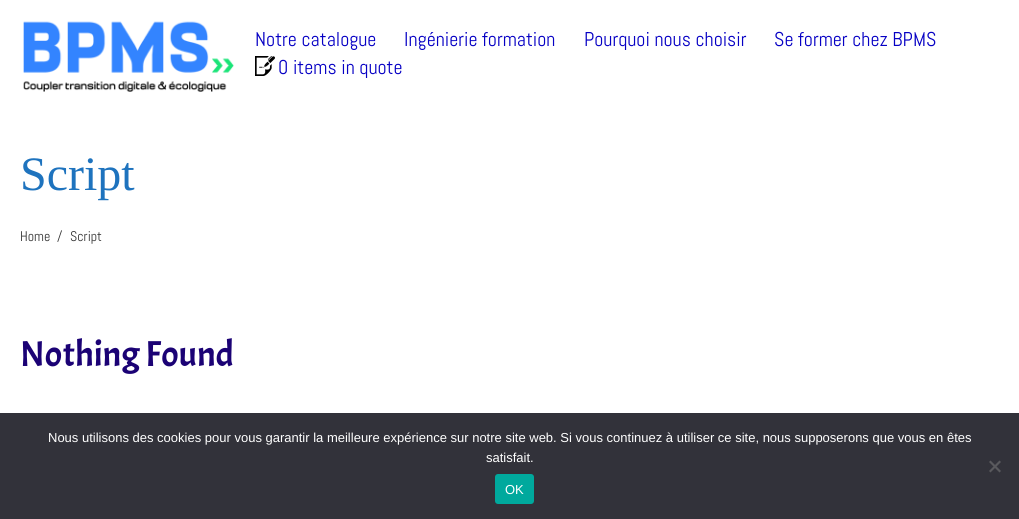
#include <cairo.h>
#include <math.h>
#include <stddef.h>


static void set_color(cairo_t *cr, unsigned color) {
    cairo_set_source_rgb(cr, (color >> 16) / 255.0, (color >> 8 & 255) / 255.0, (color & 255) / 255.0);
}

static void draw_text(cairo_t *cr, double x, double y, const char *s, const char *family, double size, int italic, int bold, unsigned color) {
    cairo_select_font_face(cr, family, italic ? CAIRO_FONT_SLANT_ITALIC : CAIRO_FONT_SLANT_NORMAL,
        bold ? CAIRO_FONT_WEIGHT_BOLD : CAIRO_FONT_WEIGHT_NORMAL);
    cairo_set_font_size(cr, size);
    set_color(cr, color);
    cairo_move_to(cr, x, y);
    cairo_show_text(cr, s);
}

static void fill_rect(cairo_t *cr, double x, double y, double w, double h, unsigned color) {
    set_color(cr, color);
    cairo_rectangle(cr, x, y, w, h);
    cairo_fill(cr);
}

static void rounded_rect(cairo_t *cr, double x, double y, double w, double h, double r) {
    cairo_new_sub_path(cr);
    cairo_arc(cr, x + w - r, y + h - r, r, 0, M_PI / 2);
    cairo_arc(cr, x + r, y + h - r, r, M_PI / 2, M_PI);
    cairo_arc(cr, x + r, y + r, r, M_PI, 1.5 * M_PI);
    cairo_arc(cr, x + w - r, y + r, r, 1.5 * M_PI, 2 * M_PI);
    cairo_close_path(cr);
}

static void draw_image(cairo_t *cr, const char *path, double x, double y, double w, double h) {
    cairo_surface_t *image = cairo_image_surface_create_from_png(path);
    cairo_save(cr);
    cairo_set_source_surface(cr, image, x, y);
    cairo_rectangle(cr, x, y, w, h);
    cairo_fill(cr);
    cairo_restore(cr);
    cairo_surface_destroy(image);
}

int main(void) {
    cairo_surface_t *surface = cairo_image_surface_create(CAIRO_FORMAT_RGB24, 1019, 519);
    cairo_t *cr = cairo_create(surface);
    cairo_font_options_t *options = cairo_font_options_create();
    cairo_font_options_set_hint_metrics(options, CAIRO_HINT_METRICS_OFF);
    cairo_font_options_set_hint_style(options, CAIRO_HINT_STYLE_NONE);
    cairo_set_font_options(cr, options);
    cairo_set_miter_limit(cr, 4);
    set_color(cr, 0xFFFFFF);
    cairo_paint(cr);
    draw_image(cr, "assets/img1.png", 23, 21, 211, 71);
    draw_text(cr, 255, 46, "Notre catalogue", "Abel", 20, 0, 0, 0x0600C4);
    draw_text(cr, 404, 46, "Ingénierie formation", "Abel", 20, 0, 0, 0x0600C4);
    draw_text(cr, 584, 46, "Pourquoi nous choisir", "Abel", 20, 0, 0, 0x0600C4);
    draw_text(cr, 774, 46, "Se former chez BPMS", "Abel", 20, 0, 0, 0x0600C4);
    draw_image(cr, "assets/img2.png", 255, 56, 20, 20);
    draw_text(cr, 278, 74, "0 items in quote", "Abel", 20, 0, 0, 0x0600C4);
    draw_text(cr, 20, 190, "Script", "Liberation Serif", 48, 0, 0, 0x1E73BE);
    draw_text(cr, 20, 241, "Home", "Abel", 14, 0, 0, 0x333333);
    draw_text(cr, 57, 241, "/", "Abel", 14, 0, 0, 0x333333);
    draw_text(cr, 70, 241, "Script", "Abel", 14, 0, 0, 0x333333);
    draw_text(cr, 20, 366, "Nothing Found", "Acme", 36, 0, 0, 0x1B0275);
    fill_rect(cr, 0, 413, 1019, 106, 0x32323A);
    draw_text(cr, 48, 442, "Nous utilisons des cookies pour vous garantir la meilleure expérience sur notre site web. Si vous continuez à utiliser ce site, nous supposerons que vous en êtes", "Liberation Sans", 13, 0, 0, 0xFFFFFF);
    draw_text(cr, 486, 462, "satisfait.", "Liberation Sans", 13, 0, 0, 0xFFFFFF);
    set_color(cr, 0x59595D);
    cairo_new_path(cr);
    cairo_move_to(cr, 999.5, 460.5);
    cairo_line_to(cr, 1001, 462);
    cairo_line_to(cr, 990.5, 472.5);
    cairo_line_to(cr, 989, 471);
    cairo_close_path(cr);
    cairo_fill(cr);
    cairo_new_path(cr);
    cairo_move_to(cr, 989, 462);
    cairo_line_to(cr, 990.5, 460.5);
    cairo_line_to(cr, 1001, 471);
    cairo_line_to(cr, 999.5, 472.5);
    cairo_close_path(cr);
    cairo_fill(cr);
    set_color(cr, 0x00A99D);
    rounded_rect(cr, 495, 474, 39, 30, 3);
    cairo_fill(cr);
    draw_text(cr, 505, 494, "OK", "Liberation Sans", 13, 0, 0, 0xFFFFFF);
    cairo_surface_write_to_png(surface, "output.png");
    cairo_font_options_destroy(options);
    cairo_destroy(cr);
    cairo_surface_destroy(surface);
    return 0;
}
